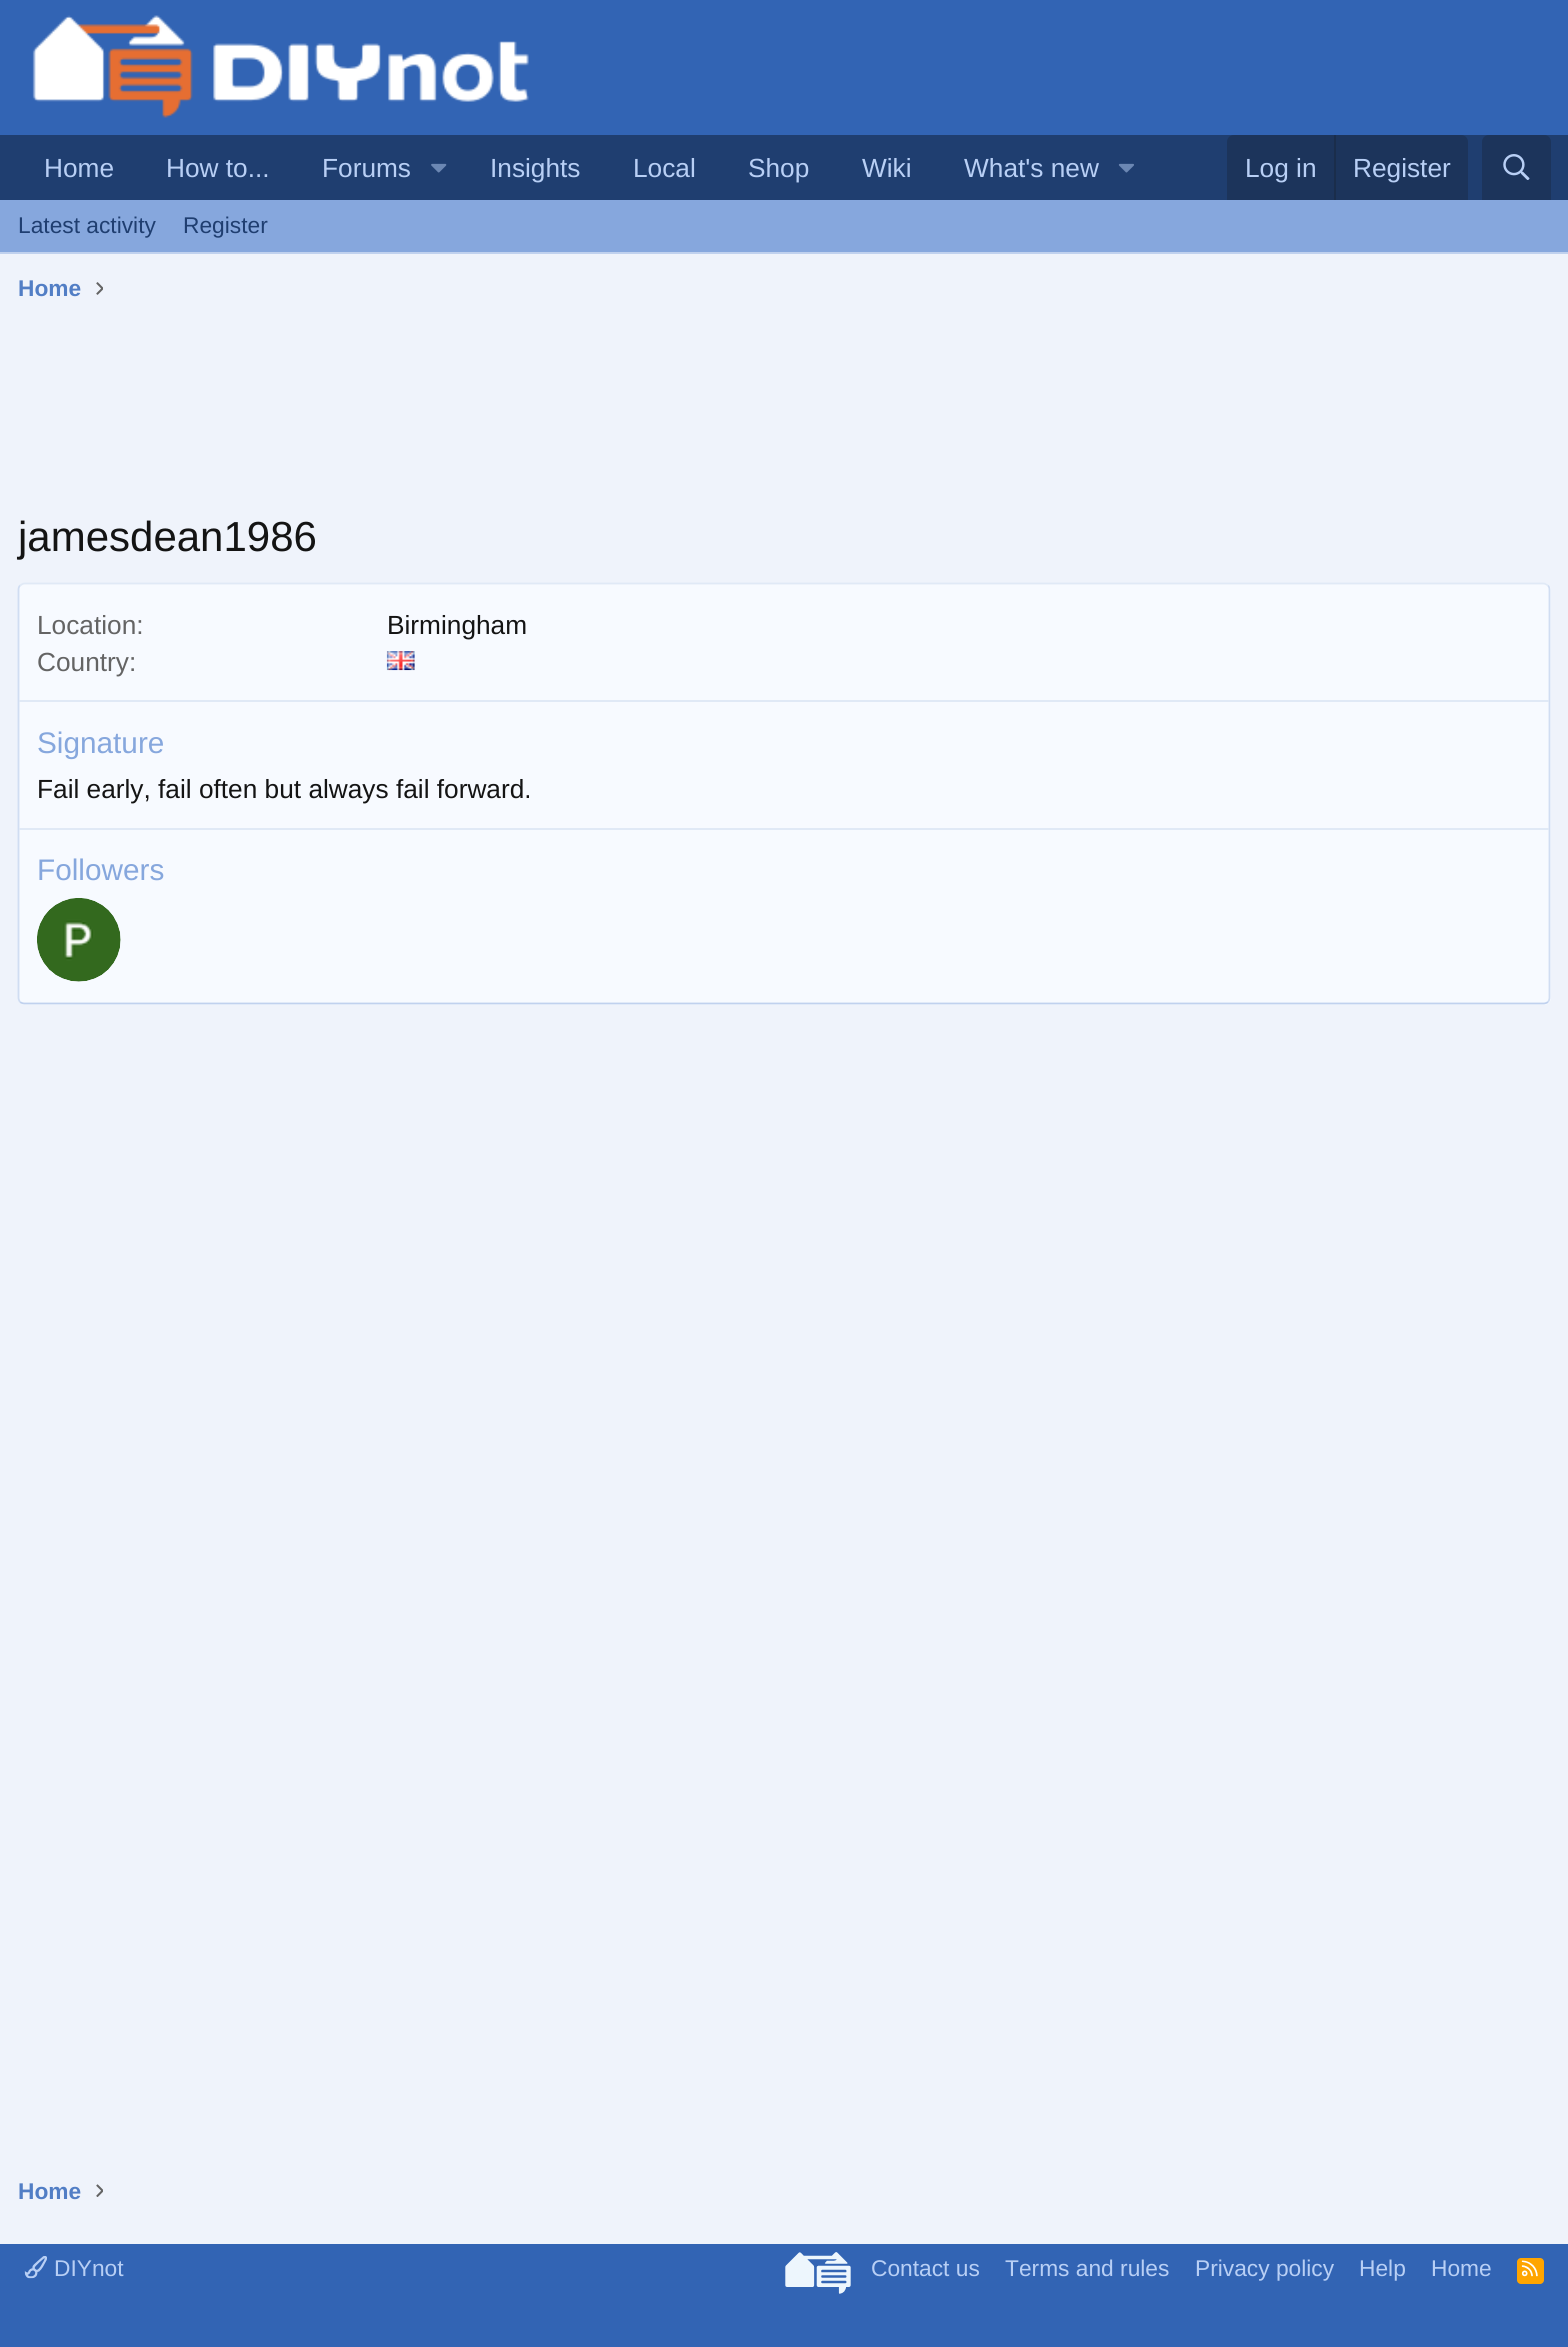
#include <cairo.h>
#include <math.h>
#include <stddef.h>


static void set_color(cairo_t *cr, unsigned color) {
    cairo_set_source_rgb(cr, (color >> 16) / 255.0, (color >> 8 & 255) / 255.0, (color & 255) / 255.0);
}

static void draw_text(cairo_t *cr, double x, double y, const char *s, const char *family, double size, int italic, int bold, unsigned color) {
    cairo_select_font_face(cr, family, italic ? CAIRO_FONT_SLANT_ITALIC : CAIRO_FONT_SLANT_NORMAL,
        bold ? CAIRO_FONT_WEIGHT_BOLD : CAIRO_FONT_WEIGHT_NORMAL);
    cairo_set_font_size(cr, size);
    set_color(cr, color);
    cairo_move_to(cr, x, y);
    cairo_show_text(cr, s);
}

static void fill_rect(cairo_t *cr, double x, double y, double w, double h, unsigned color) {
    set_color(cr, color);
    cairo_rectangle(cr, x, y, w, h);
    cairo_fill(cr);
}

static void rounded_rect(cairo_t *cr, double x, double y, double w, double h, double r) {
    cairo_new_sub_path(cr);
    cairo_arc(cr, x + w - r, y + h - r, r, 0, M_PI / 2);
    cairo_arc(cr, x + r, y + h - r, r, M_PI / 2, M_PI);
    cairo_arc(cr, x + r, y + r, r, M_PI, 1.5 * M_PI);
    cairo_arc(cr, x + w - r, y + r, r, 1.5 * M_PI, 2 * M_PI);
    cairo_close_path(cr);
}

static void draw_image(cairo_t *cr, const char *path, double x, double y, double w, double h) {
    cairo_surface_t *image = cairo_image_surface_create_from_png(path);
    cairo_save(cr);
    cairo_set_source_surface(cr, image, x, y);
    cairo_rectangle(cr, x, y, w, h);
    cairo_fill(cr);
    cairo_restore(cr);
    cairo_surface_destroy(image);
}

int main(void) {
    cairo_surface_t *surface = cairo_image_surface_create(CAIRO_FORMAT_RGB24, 1568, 2347);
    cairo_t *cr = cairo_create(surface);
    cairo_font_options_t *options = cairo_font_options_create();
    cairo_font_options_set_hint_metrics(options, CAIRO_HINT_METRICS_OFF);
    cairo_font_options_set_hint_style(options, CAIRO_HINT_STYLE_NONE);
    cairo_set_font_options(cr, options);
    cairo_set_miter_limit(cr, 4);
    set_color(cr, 0xEFF3FB);
    cairo_paint(cr);
    fill_rect(cr, 0, 0, 1568, 135, 0x3264B4);
    draw_image(cr, "assets/img1.png", 32, 15, 497, 103);
    fill_rect(cr, 0, 135, 1568, 65, 0x1F3E70);
    draw_text(cr, 44, 177, "Home", "Liberation Sans", 26.25, 0, 0, 0xB8CFF5);
    draw_text(cr, 166, 177, "How to...", "Liberation Sans", 26.25, 0, 0, 0xB8CFF5);
    draw_text(cr, 322, 177, "Forums", "Liberation Sans", 26.25, 0, 0, 0xB8CFF5);
    draw_image(cr, "assets/img2.png", 431, 163, 16, 10);
    draw_text(cr, 490, 177, "Insights", "Liberation Sans", 26.25, 0, 0, 0xB8CFF5);
    draw_text(cr, 633, 177, "Local", "Liberation Sans", 26.25, 0, 0, 0xB8CFF5);
    draw_text(cr, 748, 177, "Shop", "Liberation Sans", 26.25, 0, 0, 0xB8CFF5);
    draw_text(cr, 862, 177, "Wiki", "Liberation Sans", 26.25, 0, 0, 0xB8CFF5);
    draw_text(cr, 964, 177, "What's new", "Liberation Sans", 26.25, 0, 0, 0xB8CFF5);
    draw_image(cr, "assets/img3.png", 1118, 163, 16, 10);
    set_color(cr, 0x1C345B);
    cairo_new_path(cr);
    cairo_move_to(cr, 1234, 135);
    cairo_line_to(cr, 1461, 135);
    cairo_curve_to(cr, 1465, 135, 1468, 138, 1468, 142);
    cairo_line_to(cr, 1468, 200);
    cairo_line_to(cr, 1227, 200);
    cairo_line_to(cr, 1227, 142);
    cairo_curve_to(cr, 1227, 138, 1230, 135, 1234, 135);
    cairo_close_path(cr);
    cairo_fill(cr);
    draw_text(cr, 1245, 177, "Log in", "Liberation Sans", 26.25, 0, 0, 0xB8CFF5);
    fill_rect(cr, 1334, 135, 2, 65, 0x1A2D4B);
    draw_text(cr, 1353, 177, "Register", "Liberation Sans", 26.25, 0, 0, 0xB8CFF5);
    set_color(cr, 0x1C345B);
    cairo_new_path(cr);
    cairo_move_to(cr, 1489, 135);
    cairo_line_to(cr, 1544, 135);
    cairo_curve_to(cr, 1548, 135, 1551, 138, 1551, 142);
    cairo_line_to(cr, 1551, 200);
    cairo_line_to(cr, 1482, 200);
    cairo_line_to(cr, 1482, 142);
    cairo_curve_to(cr, 1482, 138, 1485, 135, 1489, 135);
    cairo_close_path(cr);
    cairo_fill(cr);
    draw_image(cr, "assets/img4.png", 1503, 154, 27, 26);
    fill_rect(cr, 0, 200, 1568, 52, 0x86A7DD);
    fill_rect(cr, 0, 252, 1568, 2, 0xC0D1EE);
    draw_text(cr, 18, 233, "Latest activity", "Liberation Sans", 22.75, 0, 0, 0x1F3E70);
    draw_text(cr, 183, 233, "Register", "Liberation Sans", 22.75, 0, 0, 0x1F3E70);
    draw_text(cr, 18, 296, "Home", "Liberation Sans", 22.75, 0, 1, 0x527EC5);
    draw_image(cr, "assets/img5.png", 96, 282, 7, 13);
    draw_text(cr, 18, 551, "jamesdean1986", "Liberation Sans", 42, 0, 0, 0x141414);
    set_color(cr, 0xF7FAFF);
    rounded_rect(cr, 18, 583, 1533, 422, 7);
    cairo_fill(cr);
    cairo_new_path(cr);
    cairo_move_to(cr, 20, 585.5);
    cairo_curve_to(cr, 21.5, 584.5, 23, 583.5, 24.5, 583.5);
    cairo_line_to(cr, 1543.5, 583.5);
    cairo_curve_to(cr, 1545, 583.5, 1546.5, 584.5, 1548, 585.5);
    set_color(cr, 0xE0E9F6);
    cairo_set_line_width(cr, 1.8);
    cairo_stroke(cr);
    cairo_new_path(cr);
    cairo_move_to(cr, 1548, 585.5);
    cairo_curve_to(cr, 1549, 586.5, 1549.5, 588, 1549.5, 590);
    cairo_line_to(cr, 1549.5, 997.5);
    cairo_curve_to(cr, 1549.5, 999, 1549, 1000.5, 1548, 1002);
    set_color(cr, 0xD0DDF2);
    cairo_stroke(cr);
    cairo_new_path(cr);
    cairo_move_to(cr, 1548, 1002);
    cairo_curve_to(cr, 1546.5, 1003, 1545, 1003.5, 1543.5, 1003.5);
    cairo_line_to(cr, 24.5, 1003.5);
    cairo_curve_to(cr, 23, 1003.5, 21.5, 1003, 20, 1002);
    set_color(cr, 0xC0D1EE);
    cairo_stroke(cr);
    cairo_new_path(cr);
    cairo_move_to(cr, 20, 1002);
    cairo_curve_to(cr, 19, 1000.5, 18.5, 999, 18.5, 997.5);
    cairo_line_to(cr, 18.5, 590);
    cairo_curve_to(cr, 18.5, 588, 19, 586.5, 20, 585.5);
    set_color(cr, 0xD0DDF2);
    cairo_stroke(cr);
    draw_text(cr, 37, 634, "Location:", "Liberation Sans", 26.25, 0, 0, 0x646464);
    draw_text(cr, 387, 634, "Birmingham", "Liberation Sans", 26.25, 0, 0, 0x141414);
    draw_text(cr, 37, 671, "Country:", "Liberation Sans", 26.25, 0, 0, 0x646464);
    draw_image(cr, "assets/img6.png", 386, 651, 29, 20);
    fill_rect(cr, 19, 700, 1530, 2, 0xE0E9F6);
    draw_text(cr, 37, 753, "Signature", "Liberation Sans", 29.75, 0, 0, 0x86A7DD);
    draw_text(cr, 37, 798, "Fail early, fail often but always fail forward.", "Liberation Sans", 26.25, 0, 0, 0x141414);
    fill_rect(cr, 19, 828, 1530, 2, 0xE0E9F6);
    draw_text(cr, 37, 880, "Followers", "Liberation Sans", 29.75, 0, 0, 0x86A7DD);
    draw_image(cr, "assets/img7.png", 37, 898, 84, 84);
    draw_text(cr, 18, 2199, "Home", "Liberation Sans", 22.75, 0, 1, 0x527EC5);
    draw_image(cr, "assets/img8.png", 96, 2184, 7, 13);
    fill_rect(cr, 0, 2244, 1568, 103, 0x3264B4);
    draw_image(cr, "assets/img9.png", 24, 2256, 23, 23);
    draw_text(cr, 54, 2276, "DIYnot", "Liberation Sans", 22.75, 0, 0, 0xB8CFF5);
    draw_image(cr, "assets/img10.png", 785, 2252, 66, 42);
    draw_text(cr, 871, 2276, "Contact us", "Liberation Sans", 22.75, 0, 0, 0xB8CFF5);
    draw_text(cr, 1005, 2276, "Terms and rules", "Liberation Sans", 22.75, 0, 0, 0xB8CFF5);
    draw_text(cr, 1195, 2276, "Privacy policy", "Liberation Sans", 22.75, 0, 0, 0xB8CFF5);
    draw_text(cr, 1359, 2276, "Help", "Liberation Sans", 22.75, 0, 0, 0xB8CFF5);
    draw_text(cr, 1431, 2276, "Home", "Liberation Sans", 22.75, 0, 0, 0xB8CFF5);
    set_color(cr, 0xFFA500);
    rounded_rect(cr, 1517, 2258, 27, 26, 4);
    cairo_fill(cr);
    draw_image(cr, "assets/img11.png", 1521, 2260, 17, 17);
    cairo_surface_write_to_png(surface, "output.png");
    cairo_font_options_destroy(options);
    cairo_destroy(cr);
    cairo_surface_destroy(surface);
    return 0;
}
